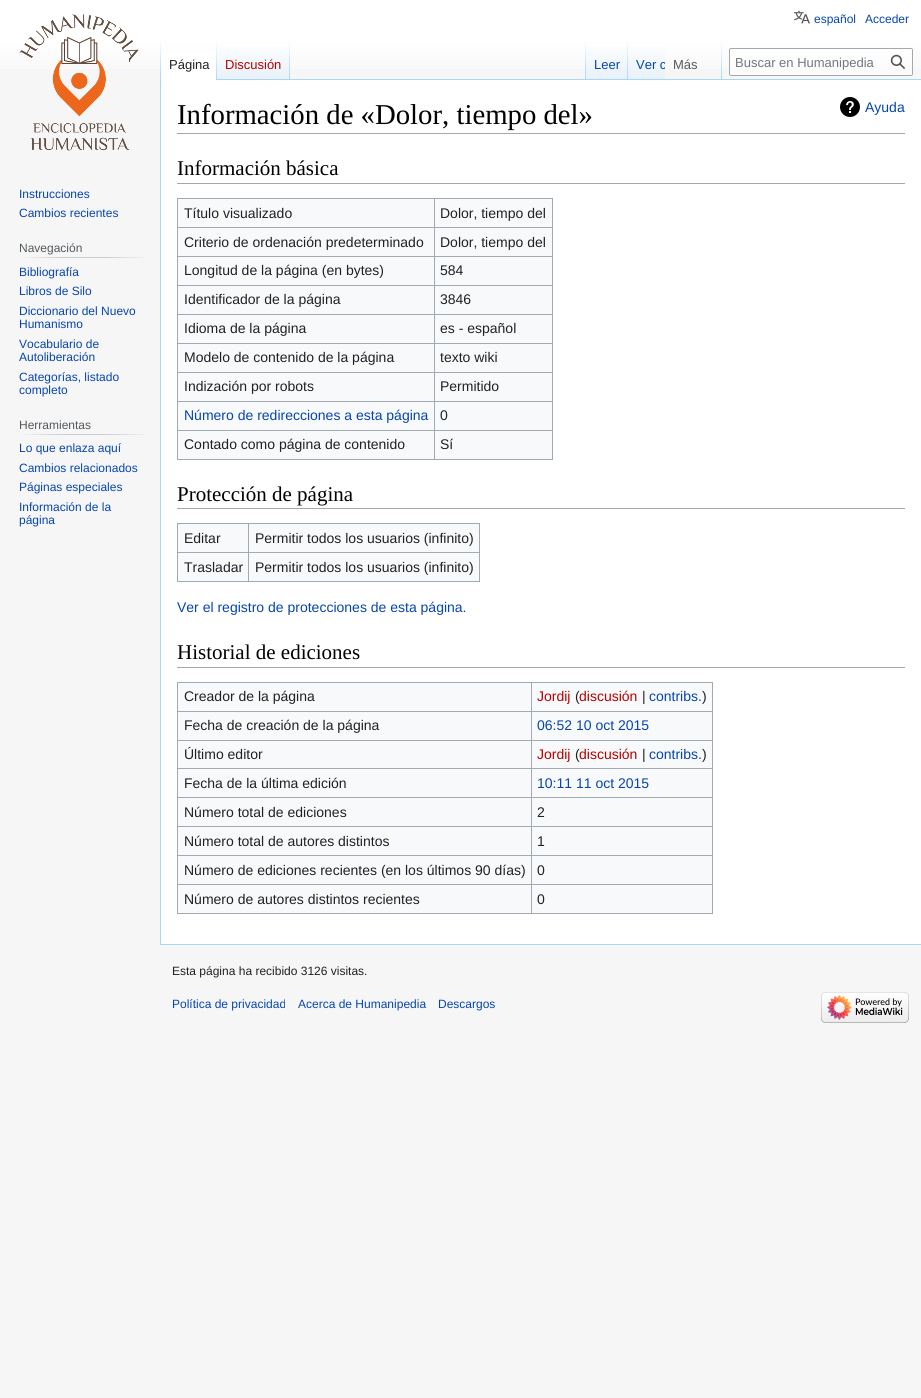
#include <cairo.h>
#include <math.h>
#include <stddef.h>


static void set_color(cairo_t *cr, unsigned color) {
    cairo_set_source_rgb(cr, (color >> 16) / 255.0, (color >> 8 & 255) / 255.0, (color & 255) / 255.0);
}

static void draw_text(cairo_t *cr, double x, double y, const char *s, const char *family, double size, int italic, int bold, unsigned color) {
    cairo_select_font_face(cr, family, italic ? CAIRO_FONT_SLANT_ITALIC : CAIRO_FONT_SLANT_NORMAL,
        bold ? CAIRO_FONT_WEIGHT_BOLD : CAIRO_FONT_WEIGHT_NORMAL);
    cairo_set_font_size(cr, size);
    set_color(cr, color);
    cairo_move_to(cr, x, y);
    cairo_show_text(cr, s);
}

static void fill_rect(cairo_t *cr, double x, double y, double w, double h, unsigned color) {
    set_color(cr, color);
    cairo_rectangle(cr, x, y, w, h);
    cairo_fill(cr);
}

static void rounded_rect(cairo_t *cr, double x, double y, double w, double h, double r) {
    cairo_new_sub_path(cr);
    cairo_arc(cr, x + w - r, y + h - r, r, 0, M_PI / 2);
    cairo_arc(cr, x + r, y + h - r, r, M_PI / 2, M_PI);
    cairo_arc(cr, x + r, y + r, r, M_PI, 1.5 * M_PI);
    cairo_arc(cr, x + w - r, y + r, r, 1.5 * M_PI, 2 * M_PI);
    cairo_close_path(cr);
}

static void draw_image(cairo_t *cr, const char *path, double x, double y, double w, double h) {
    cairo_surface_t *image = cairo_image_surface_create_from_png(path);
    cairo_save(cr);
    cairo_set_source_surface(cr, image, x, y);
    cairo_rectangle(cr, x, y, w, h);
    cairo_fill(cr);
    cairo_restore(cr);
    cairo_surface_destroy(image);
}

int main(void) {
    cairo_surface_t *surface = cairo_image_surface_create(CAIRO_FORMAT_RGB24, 921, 1398);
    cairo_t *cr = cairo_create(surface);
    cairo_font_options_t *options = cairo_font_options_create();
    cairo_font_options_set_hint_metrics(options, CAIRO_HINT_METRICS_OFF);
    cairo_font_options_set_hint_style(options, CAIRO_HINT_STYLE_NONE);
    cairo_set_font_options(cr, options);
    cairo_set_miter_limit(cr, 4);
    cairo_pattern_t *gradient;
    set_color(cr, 0xF6F6F6);
    cairo_paint(cr);
    gradient = cairo_pattern_create_linear(461, 0, 461, 80);
    cairo_pattern_add_color_stop_rgba(gradient, 0.5, 1, 1, 1, 1);
    cairo_pattern_add_color_stop_rgba(gradient, 1, 0.965, 0.965, 0.965, 1);
    cairo_set_source(cr, gradient);
    cairo_pattern_destroy(gradient);
    cairo_rectangle(cr, 0, 0, 921, 69);
    cairo_fill(cr);
    draw_image(cr, "assets/img1.png", 794, 10, 16, 14);
    draw_text(cr, 814, 23, "español", "Liberation Sans", 12, 0, 0, 0x0645AD);
    draw_text(cr, 865, 23, "Acceder", "Liberation Sans", 12, 0, 0, 0x0645AD);
    fill_rect(cr, 160, 944, 761, 1, 0xA7D7F9);
    fill_rect(cr, 160, 79, 1, 866, 0xA7D7F9);
    gradient = cairo_pattern_create_linear(161, 40, 161, 80);
    cairo_pattern_add_color_stop_rgba(gradient, 0, 0.655, 0.843, 0.976, 0);
    cairo_pattern_add_color_stop_rgba(gradient, 1, 0.655, 0.843, 0.976, 1);
    cairo_set_source(cr, gradient);
    cairo_pattern_destroy(gradient);
    cairo_rectangle(cr, 160, 40, 1, 40);
    cairo_fill(cr);
    fill_rect(cr, 161, 51, 55, 29, 0xFFFFFF);
    gradient = cairo_pattern_create_linear(217, 40, 217, 80);
    cairo_pattern_add_color_stop_rgba(gradient, 0, 1, 1, 1, 1);
    cairo_pattern_add_color_stop_rgba(gradient, 1, 0.655, 0.843, 0.976, 1);
    cairo_set_source(cr, gradient);
    cairo_pattern_destroy(gradient);
    cairo_rectangle(cr, 216, 40, 1, 40);
    cairo_fill(cr);
    draw_text(cr, 169, 69, "Página", "Liberation Sans", 13, 0, 0, 0x202122);
    gradient = cairo_pattern_create_linear(254, 80, 254, 40);
    cairo_pattern_add_color_stop_rgba(gradient, 0, 0.467, 0.757, 0.965, 1);
    cairo_pattern_add_color_stop_rgba(gradient, 0.03, 0.91, 0.949, 0.973, 1);
    cairo_pattern_add_color_stop_rgba(gradient, 1, 1, 1, 1, 1);
    cairo_set_source(cr, gradient);
    cairo_pattern_destroy(gradient);
    cairo_rectangle(cr, 217, 46, 73, 34);
    cairo_fill(cr);
    gradient = cairo_pattern_create_linear(290, 40, 290, 80);
    cairo_pattern_add_color_stop_rgba(gradient, 0, 0.655, 0.843, 0.976, 0);
    cairo_pattern_add_color_stop_rgba(gradient, 1, 0.655, 0.843, 0.976, 1);
    cairo_set_source(cr, gradient);
    cairo_pattern_destroy(gradient);
    cairo_rectangle(cr, 289, 40, 1, 40);
    cairo_fill(cr);
    draw_text(cr, 225, 69, "Discusión", "Liberation Sans", 13, 0, 0, 0xBA0000);
    fill_rect(cr, 290, 79, 631, 1, 0xA7D7F9);
    gradient = cairo_pattern_create_linear(586, 40, 586, 80);
    cairo_pattern_add_color_stop_rgba(gradient, 0, 0.655, 0.843, 0.976, 0);
    cairo_pattern_add_color_stop_rgba(gradient, 1, 0.655, 0.843, 0.976, 1);
    cairo_set_source(cr, gradient);
    cairo_pattern_destroy(gradient);
    cairo_rectangle(cr, 585, 40, 1, 40);
    cairo_fill(cr);
    gradient = cairo_pattern_create_linear(607, 80, 607, 40);
    cairo_pattern_add_color_stop_rgba(gradient, 0, 0.467, 0.757, 0.965, 1);
    cairo_pattern_add_color_stop_rgba(gradient, 0.03, 0.91, 0.949, 0.973, 1);
    cairo_pattern_add_color_stop_rgba(gradient, 1, 1, 1, 1, 1);
    cairo_set_source(cr, gradient);
    cairo_pattern_destroy(gradient);
    cairo_rectangle(cr, 586, 46, 42, 33);
    cairo_fill(cr);
    gradient = cairo_pattern_create_linear(628, 40, 628, 80);
    cairo_pattern_add_color_stop_rgba(gradient, 0, 0.655, 0.843, 0.976, 0);
    cairo_pattern_add_color_stop_rgba(gradient, 1, 0.655, 0.843, 0.976, 1);
    cairo_set_source(cr, gradient);
    cairo_pattern_destroy(gradient);
    cairo_rectangle(cr, 627, 40, 1, 40);
    cairo_fill(cr);
    draw_text(cr, 594, 69, "Leer", "Liberation Sans", 13, 0, 0, 0x0645AD);
    gradient = cairo_pattern_create_linear(647, 80, 647, 40);
    cairo_pattern_add_color_stop_rgba(gradient, 0, 0.467, 0.757, 0.965, 1);
    cairo_pattern_add_color_stop_rgba(gradient, 0.03, 0.91, 0.949, 0.973, 1);
    cairo_pattern_add_color_stop_rgba(gradient, 1, 1, 1, 1, 1);
    cairo_set_source(cr, gradient);
    cairo_pattern_destroy(gradient);
    cairo_rectangle(cr, 628, 46, 37, 33);
    cairo_fill(cr);
    cairo_save(cr);
    cairo_rectangle(cr, 628, 40, 37, 40);
    cairo_clip(cr);
    draw_text(cr, 636, 69, "Ver c", "Liberation Sans", 13, 0, 0, 0x0645AD);
    cairo_restore(cr);
    gradient = cairo_pattern_create_linear(722, 40, 722, 80);
    cairo_pattern_add_color_stop_rgba(gradient, 0, 0.655, 0.843, 0.976, 0);
    cairo_pattern_add_color_stop_rgba(gradient, 1, 0.655, 0.843, 0.976, 1);
    cairo_set_source(cr, gradient);
    cairo_pattern_destroy(gradient);
    cairo_rectangle(cr, 721, 40, 1, 40);
    cairo_fill(cr);
    draw_text(cr, 673, 69, "Más", "Liberation Sans", 13, 0, 0, 0x54595D);
    cairo_set_source_rgba(cr, 1, 1, 1, 0.5);
    rounded_rect(cr, 729.5, 48.5, 183, 27, 1.5);
    cairo_fill_preserve(cr);
    set_color(cr, 0xA2A9B1);
    cairo_set_line_width(cr, 1);
    cairo_stroke(cr);
    draw_text(cr, 735, 67, "Buscar en Humanipedia", "Liberation Sans", 13, 0, 0, 0x72777D);
    draw_image(cr, "assets/img2.png", 890, 54, 15, 15);
    draw_image(cr, "assets/img3.png", 19, 14, 120, 137);
    draw_text(cr, 19, 198, "Instrucciones", "Liberation Sans", 12, 0, 0, 0x0645AD);
    draw_text(cr, 19, 217, "Cambios recientes", "Liberation Sans", 12, 0, 0, 0x0645AD);
    gradient = cairo_pattern_create_linear(19, 258, 150, 258);
    cairo_pattern_add_color_stop_rgba(gradient, 0, 0.965, 0.965, 0.965, 1);
    cairo_pattern_add_color_stop_rgba(gradient, 0.33, 0.784, 0.8, 0.82, 1);
    cairo_pattern_add_color_stop_rgba(gradient, 0.66, 0.784, 0.8, 0.82, 1);
    cairo_pattern_add_color_stop_rgba(gradient, 1, 0.965, 0.965, 0.965, 1);
    cairo_set_source(cr, gradient);
    cairo_pattern_destroy(gradient);
    cairo_rectangle(cr, 19, 257, 131, 1);
    cairo_fill(cr);
    draw_text(cr, 19, 252, "Navegación", "Liberation Sans", 12, 0, 0, 0x54595D);
    draw_text(cr, 19, 276, "Bibliografía", "Liberation Sans", 12, 0, 0, 0x0645AD);
    draw_text(cr, 19, 295, "Libros de Silo", "Liberation Sans", 12, 0, 0, 0x0645AD);
    draw_text(cr, 19, 315, "Diccionario del Nuevo", "Liberation Sans", 12, 0, 0, 0x0645AD);
    draw_text(cr, 19, 328, "Humanismo", "Liberation Sans", 12, 0, 0, 0x0645AD);
    draw_text(cr, 19, 348, "Vocabulario de", "Liberation Sans", 12, 0, 0, 0x0645AD);
    draw_text(cr, 19, 361, "Autoliberación", "Liberation Sans", 12, 0, 0, 0x0645AD);
    draw_text(cr, 19, 381, "Categorías, listado", "Liberation Sans", 12, 0, 0, 0x0645AD);
    draw_text(cr, 19, 394, "completo", "Liberation Sans", 12, 0, 0, 0x0645AD);
    gradient = cairo_pattern_create_linear(19, 435, 150, 435);
    cairo_pattern_add_color_stop_rgba(gradient, 0, 0.965, 0.965, 0.965, 1);
    cairo_pattern_add_color_stop_rgba(gradient, 0.33, 0.784, 0.8, 0.82, 1);
    cairo_pattern_add_color_stop_rgba(gradient, 0.66, 0.784, 0.8, 0.82, 1);
    cairo_pattern_add_color_stop_rgba(gradient, 1, 0.965, 0.965, 0.965, 1);
    cairo_set_source(cr, gradient);
    cairo_pattern_destroy(gradient);
    cairo_rectangle(cr, 19, 434, 131, 1);
    cairo_fill(cr);
    draw_text(cr, 19, 429, "Herramientas", "Liberation Sans", 12, 0, 0, 0x54595D);
    draw_text(cr, 19, 452, "Lo que enlaza aquí", "Liberation Sans", 12, 0, 0, 0x0645AD);
    draw_text(cr, 19, 472, "Cambios relacionados", "Liberation Sans", 12, 0, 0, 0x0645AD);
    draw_text(cr, 19, 491, "Páginas especiales", "Liberation Sans", 12, 0, 0, 0x0645AD);
    draw_text(cr, 19, 511, "Información de la", "Liberation Sans", 12, 0, 0, 0x0645AD);
    draw_text(cr, 19, 524, "página", "Liberation Sans", 12, 0, 0, 0x0645AD);
    fill_rect(cr, 161, 80, 760, 864, 0xFFFFFF);
    fill_rect(cr, 177, 133, 728, 1, 0xA2A9B1);
    draw_text(cr, 177, 124, "Información de «Dolor, tiempo del»", "Liberation Serif", 28.75, 0, 0, 0x000000);
    draw_image(cr, "assets/img4.png", 840, 97, 20, 20);
    draw_text(cr, 865, 112, "Ayuda", "Liberation Sans", 14, 0, 0, 0x0645AD);
    fill_rect(cr, 177, 183, 728, 1, 0xA2A9B1);
    draw_text(cr, 177, 175, "Información básica", "Liberation Serif", 21, 0, 0, 0x000000);
    fill_rect(cr, 178, 199, 374, 260, 0xF8F9FA);
    fill_rect(cr, 177, 198, 376, 1, 0xA2A9B1);
    fill_rect(cr, 552, 198, 1, 262, 0xA2A9B1);
    fill_rect(cr, 177, 459, 376, 1, 0xA2A9B1);
    fill_rect(cr, 177, 198, 1, 262, 0xA2A9B1);
    draw_text(cr, 184, 218, "Título visualizado", "Liberation Sans", 14, 0, 0, 0x202122);
    fill_rect(cr, 434, 227, 119, 1, 0xA2A9B1);
    fill_rect(cr, 434, 256, 119, 1, 0xA2A9B1);
    fill_rect(cr, 434, 285, 119, 1, 0xA2A9B1);
    fill_rect(cr, 434, 314, 119, 1, 0xA2A9B1);
    fill_rect(cr, 434, 343, 119, 1, 0xA2A9B1);
    fill_rect(cr, 434, 372, 119, 1, 0xA2A9B1);
    fill_rect(cr, 434, 401, 119, 1, 0xA2A9B1);
    fill_rect(cr, 434, 430, 119, 1, 0xA2A9B1);
    fill_rect(cr, 434, 430, 1, 30, 0xA2A9B1);
    fill_rect(cr, 177, 430, 258, 1, 0xA2A9B1);
    fill_rect(cr, 434, 401, 1, 30, 0xA2A9B1);
    fill_rect(cr, 177, 401, 258, 1, 0xA2A9B1);
    fill_rect(cr, 434, 372, 1, 30, 0xA2A9B1);
    fill_rect(cr, 177, 372, 258, 1, 0xA2A9B1);
    fill_rect(cr, 434, 343, 1, 30, 0xA2A9B1);
    fill_rect(cr, 177, 343, 258, 1, 0xA2A9B1);
    fill_rect(cr, 434, 314, 1, 30, 0xA2A9B1);
    fill_rect(cr, 177, 314, 258, 1, 0xA2A9B1);
    fill_rect(cr, 434, 285, 1, 30, 0xA2A9B1);
    fill_rect(cr, 177, 285, 258, 1, 0xA2A9B1);
    fill_rect(cr, 434, 256, 1, 30, 0xA2A9B1);
    fill_rect(cr, 177, 256, 258, 1, 0xA2A9B1);
    fill_rect(cr, 434, 227, 1, 30, 0xA2A9B1);
    fill_rect(cr, 177, 227, 258, 1, 0xA2A9B1);
    fill_rect(cr, 434, 198, 1, 30, 0xA2A9B1);
    draw_text(cr, 440, 218, "Dolor, tiempo del", "Liberation Sans", 14, 0, 0, 0x202122);
    draw_text(cr, 184, 247, "Criterio de ordenación predeterminado", "Liberation Sans", 14, 0, 0, 0x202122);
    draw_text(cr, 440, 247, "Dolor, tiempo del", "Liberation Sans", 14, 0, 0, 0x202122);
    draw_text(cr, 184, 275, "Longitud de la página (en bytes)", "Liberation Sans", 14, 0, 0, 0x202122);
    draw_text(cr, 440, 275, "584", "Liberation Sans", 14, 0, 0, 0x202122);
    draw_text(cr, 184, 304, "Identificador de la página", "Liberation Sans", 14, 0, 0, 0x202122);
    draw_text(cr, 440, 304, "3846", "Liberation Sans", 14, 0, 0, 0x202122);
    draw_text(cr, 184, 333, "Idioma de la página", "Liberation Sans", 14, 0, 0, 0x202122);
    draw_text(cr, 440, 333, "es - español", "Liberation Sans", 14, 0, 0, 0x202122);
    draw_text(cr, 184, 362, "Modelo de contenido de la página", "Liberation Sans", 14, 0, 0, 0x202122);
    draw_text(cr, 440, 362, "texto wiki", "Liberation Sans", 14, 0, 0, 0x202122);
    draw_text(cr, 184, 391, "Indización por robots", "Liberation Sans", 14, 0, 0, 0x202122);
    draw_text(cr, 440, 391, "Permitido", "Liberation Sans", 14, 0, 0, 0x202122);
    draw_text(cr, 184, 420, "Número de redirecciones a esta página", "Liberation Sans", 14, 0, 0, 0x0645AD);
    draw_text(cr, 440, 420, "0", "Liberation Sans", 14, 0, 0, 0x202122);
    draw_text(cr, 184, 449, "Contado como página de contenido", "Liberation Sans", 14, 0, 0, 0x202122);
    draw_text(cr, 440, 449, "Sí", "Liberation Sans", 14, 0, 0, 0x202122);
    fill_rect(cr, 177, 508, 728, 1, 0xA2A9B1);
    draw_text(cr, 177, 501, "Protección de página", "Liberation Serif", 21, 0, 0, 0x000000);
    fill_rect(cr, 178, 524, 301, 57, 0xF8F9FA);
    fill_rect(cr, 177, 523, 303, 1, 0xA2A9B1);
    fill_rect(cr, 479, 523, 1, 59, 0xA2A9B1);
    fill_rect(cr, 177, 581, 303, 1, 0xA2A9B1);
    fill_rect(cr, 177, 523, 1, 59, 0xA2A9B1);
    draw_text(cr, 184, 543, "Editar", "Liberation Sans", 14, 0, 0, 0x202122);
    fill_rect(cr, 248, 552, 232, 1, 0xA2A9B1);
    fill_rect(cr, 248, 552, 1, 30, 0xA2A9B1);
    fill_rect(cr, 177, 552, 72, 1, 0xA2A9B1);
    fill_rect(cr, 248, 523, 1, 30, 0xA2A9B1);
    draw_text(cr, 255, 543, "Permitir todos los usuarios (infinito)", "Liberation Sans", 14, 0, 0, 0x202122);
    draw_text(cr, 184, 572, "Trasladar", "Liberation Sans", 14, 0, 0, 0x202122);
    draw_text(cr, 255, 572, "Permitir todos los usuarios (infinito)", "Liberation Sans", 14, 0, 0, 0x202122);
    draw_text(cr, 177, 612, "Ver el registro de protecciones de esta página.", "Liberation Sans", 14, 0, 0, 0x0645AD);
    fill_rect(cr, 177, 667, 728, 1, 0xA2A9B1);
    draw_text(cr, 177, 659, "Historial de ediciones", "Liberation Serif", 21, 0, 0, 0x000000);
    fill_rect(cr, 178, 683, 534, 230, 0xF8F9FA);
    fill_rect(cr, 177, 682, 536, 1, 0xA2A9B1);
    fill_rect(cr, 712, 682, 1, 232, 0xA2A9B1);
    fill_rect(cr, 177, 913, 536, 1, 0xA2A9B1);
    fill_rect(cr, 177, 682, 1, 232, 0xA2A9B1);
    draw_text(cr, 184, 701, "Creador de la página", "Liberation Sans", 14, 0, 0, 0x202122);
    fill_rect(cr, 531, 711, 182, 1, 0xA2A9B1);
    fill_rect(cr, 531, 740, 182, 1, 0xA2A9B1);
    fill_rect(cr, 531, 768, 182, 1, 0xA2A9B1);
    fill_rect(cr, 531, 797, 182, 1, 0xA2A9B1);
    fill_rect(cr, 531, 826, 182, 1, 0xA2A9B1);
    fill_rect(cr, 531, 855, 182, 1, 0xA2A9B1);
    fill_rect(cr, 531, 884, 182, 1, 0xA2A9B1);
    fill_rect(cr, 531, 884, 1, 30, 0xA2A9B1);
    fill_rect(cr, 177, 884, 355, 1, 0xA2A9B1);
    fill_rect(cr, 531, 855, 1, 30, 0xA2A9B1);
    fill_rect(cr, 177, 855, 355, 1, 0xA2A9B1);
    fill_rect(cr, 531, 826, 1, 30, 0xA2A9B1);
    fill_rect(cr, 177, 826, 355, 1, 0xA2A9B1);
    fill_rect(cr, 531, 797, 1, 30, 0xA2A9B1);
    fill_rect(cr, 177, 797, 355, 1, 0xA2A9B1);
    fill_rect(cr, 531, 768, 1, 30, 0xA2A9B1);
    fill_rect(cr, 177, 768, 355, 1, 0xA2A9B1);
    fill_rect(cr, 531, 740, 1, 29, 0xA2A9B1);
    fill_rect(cr, 177, 740, 355, 1, 0xA2A9B1);
    fill_rect(cr, 531, 711, 1, 30, 0xA2A9B1);
    fill_rect(cr, 177, 711, 355, 1, 0xA2A9B1);
    fill_rect(cr, 531, 682, 1, 30, 0xA2A9B1);
    draw_text(cr, 537, 701, "Jordij", "Liberation Sans", 14, 0, 0, 0xBA0000);
    draw_text(cr, 575, 701, "(", "Liberation Sans", 14, 0, 0, 0x202122);
    draw_text(cr, 579, 701, "discusión", "Liberation Sans", 14, 0, 0, 0xBA0000);
    draw_text(cr, 642, 701, "|", "Liberation Sans", 14, 0, 0, 0x202122);
    draw_text(cr, 649, 701, "contribs.", "Liberation Sans", 14, 0, 0, 0x0645AD);
    draw_text(cr, 702, 701, ")", "Liberation Sans", 14, 0, 0, 0x202122);
    draw_text(cr, 184, 730, "Fecha de creación de la página", "Liberation Sans", 14, 0, 0, 0x202122);
    draw_text(cr, 537, 730, "06:52 10 oct 2015", "Liberation Sans", 14, 0, 0, 0x0645AD);
    draw_text(cr, 184, 759, "Último editor", "Liberation Sans", 14, 0, 0, 0x202122);
    draw_text(cr, 537, 759, "Jordij", "Liberation Sans", 14, 0, 0, 0xBA0000);
    draw_text(cr, 575, 759, "(", "Liberation Sans", 14, 0, 0, 0x202122);
    draw_text(cr, 579, 759, "discusión", "Liberation Sans", 14, 0, 0, 0xBA0000);
    draw_text(cr, 642, 759, "|", "Liberation Sans", 14, 0, 0, 0x202122);
    draw_text(cr, 649, 759, "contribs.", "Liberation Sans", 14, 0, 0, 0x0645AD);
    draw_text(cr, 702, 759, ")", "Liberation Sans", 14, 0, 0, 0x202122);
    draw_text(cr, 184, 788, "Fecha de la última edición", "Liberation Sans", 14, 0, 0, 0x202122);
    draw_text(cr, 537, 788, "10:11 11 oct 2015", "Liberation Sans", 14, 0, 0, 0x0645AD);
    draw_text(cr, 184, 817, "Número total de ediciones", "Liberation Sans", 14, 0, 0, 0x202122);
    draw_text(cr, 537, 817, "2", "Liberation Sans", 14, 0, 0, 0x202122);
    draw_text(cr, 184, 846, "Número total de autores distintos", "Liberation Sans", 14, 0, 0, 0x202122);
    draw_text(cr, 537, 846, "1", "Liberation Sans", 14, 0, 0, 0x202122);
    draw_text(cr, 184, 875, "Número de ediciones recientes (en los últimos 90 días)", "Liberation Sans", 14, 0, 0, 0x202122);
    draw_text(cr, 537, 875, "0", "Liberation Sans", 14, 0, 0, 0x202122);
    draw_text(cr, 184, 904, "Número de autores distintos recientes", "Liberation Sans", 14, 0, 0, 0x202122);
    draw_text(cr, 537, 904, "0", "Liberation Sans", 14, 0, 0, 0x202122);
    draw_text(cr, 172, 975, "Esta página ha recibido 3126 visitas.", "Liberation Sans", 12, 0, 0, 0x202122);
    draw_text(cr, 172, 1008, "Política de privacidad", "Liberation Sans", 12, 0, 0, 0x0645AD);
    draw_text(cr, 298, 1008, "Acerca de Humanipedia", "Liberation Sans", 12, 0, 0, 0x0645AD);
    draw_text(cr, 438, 1008, "Descargos", "Liberation Sans", 12, 0, 0, 0x0645AD);
    draw_image(cr, "assets/img5.png", 821, 992, 88, 31);
    cairo_surface_write_to_png(surface, "output.png");
    cairo_font_options_destroy(options);
    cairo_destroy(cr);
    cairo_surface_destroy(surface);
    return 0;
}
